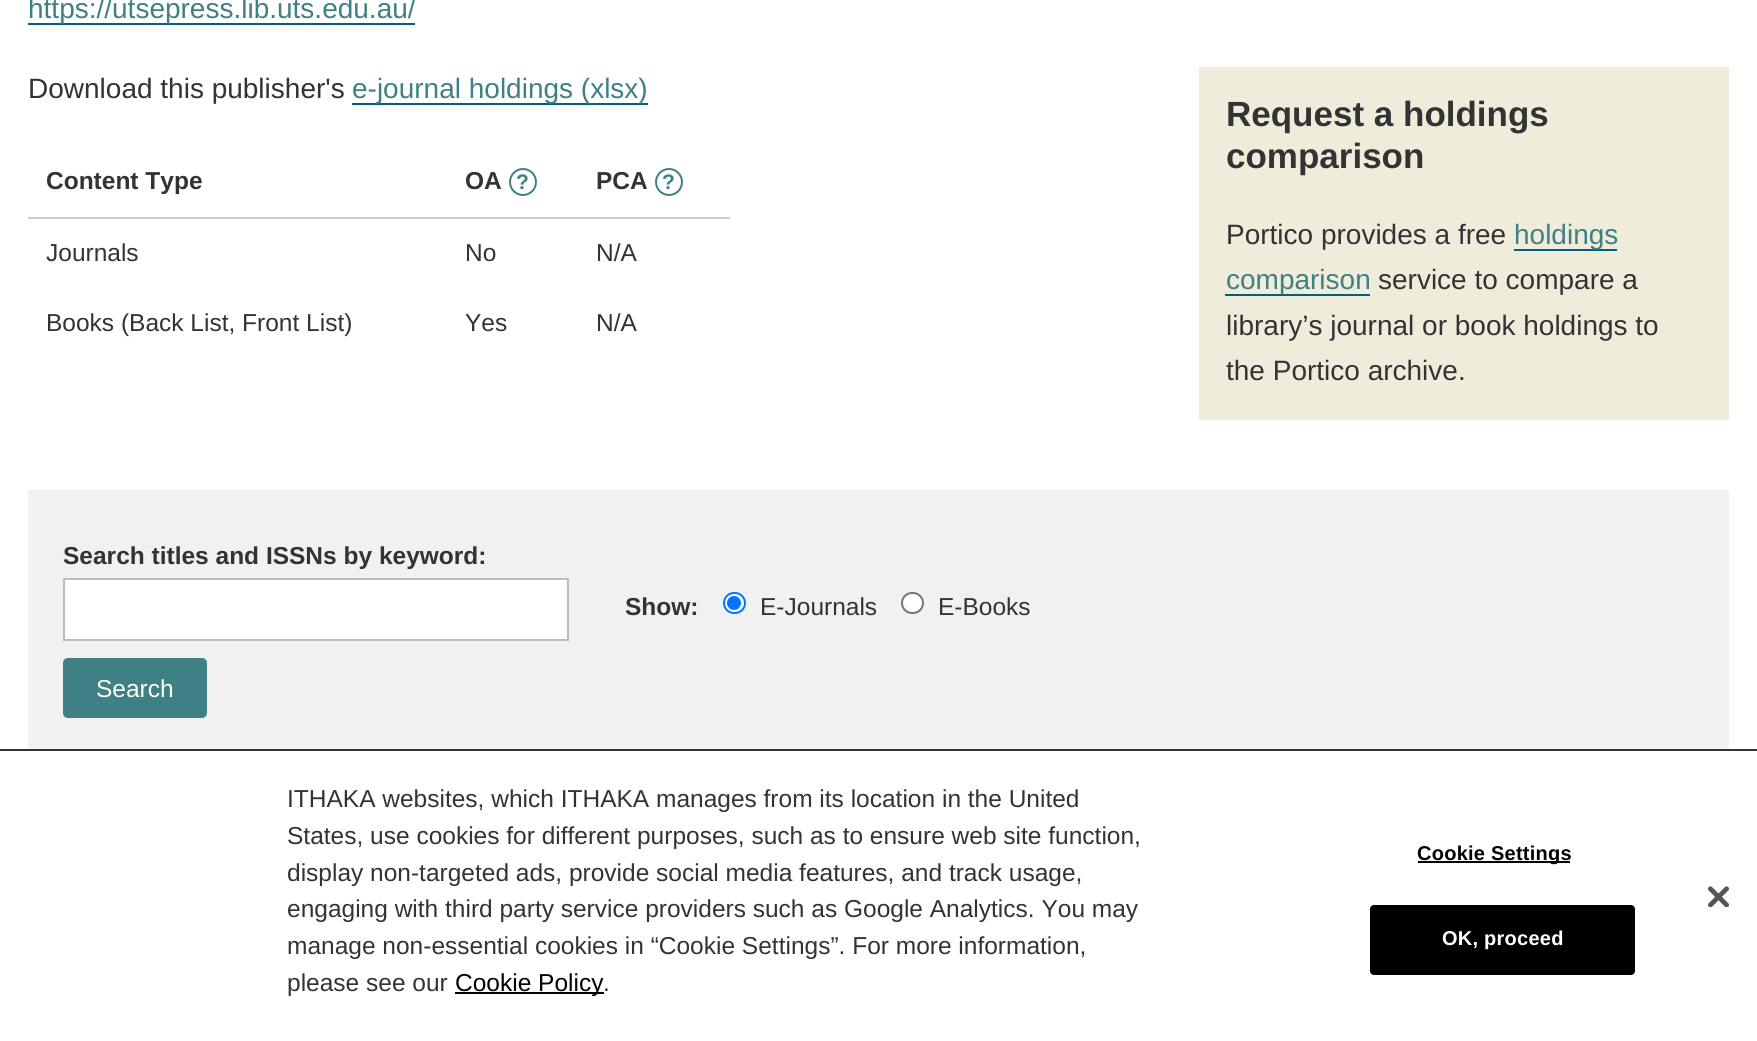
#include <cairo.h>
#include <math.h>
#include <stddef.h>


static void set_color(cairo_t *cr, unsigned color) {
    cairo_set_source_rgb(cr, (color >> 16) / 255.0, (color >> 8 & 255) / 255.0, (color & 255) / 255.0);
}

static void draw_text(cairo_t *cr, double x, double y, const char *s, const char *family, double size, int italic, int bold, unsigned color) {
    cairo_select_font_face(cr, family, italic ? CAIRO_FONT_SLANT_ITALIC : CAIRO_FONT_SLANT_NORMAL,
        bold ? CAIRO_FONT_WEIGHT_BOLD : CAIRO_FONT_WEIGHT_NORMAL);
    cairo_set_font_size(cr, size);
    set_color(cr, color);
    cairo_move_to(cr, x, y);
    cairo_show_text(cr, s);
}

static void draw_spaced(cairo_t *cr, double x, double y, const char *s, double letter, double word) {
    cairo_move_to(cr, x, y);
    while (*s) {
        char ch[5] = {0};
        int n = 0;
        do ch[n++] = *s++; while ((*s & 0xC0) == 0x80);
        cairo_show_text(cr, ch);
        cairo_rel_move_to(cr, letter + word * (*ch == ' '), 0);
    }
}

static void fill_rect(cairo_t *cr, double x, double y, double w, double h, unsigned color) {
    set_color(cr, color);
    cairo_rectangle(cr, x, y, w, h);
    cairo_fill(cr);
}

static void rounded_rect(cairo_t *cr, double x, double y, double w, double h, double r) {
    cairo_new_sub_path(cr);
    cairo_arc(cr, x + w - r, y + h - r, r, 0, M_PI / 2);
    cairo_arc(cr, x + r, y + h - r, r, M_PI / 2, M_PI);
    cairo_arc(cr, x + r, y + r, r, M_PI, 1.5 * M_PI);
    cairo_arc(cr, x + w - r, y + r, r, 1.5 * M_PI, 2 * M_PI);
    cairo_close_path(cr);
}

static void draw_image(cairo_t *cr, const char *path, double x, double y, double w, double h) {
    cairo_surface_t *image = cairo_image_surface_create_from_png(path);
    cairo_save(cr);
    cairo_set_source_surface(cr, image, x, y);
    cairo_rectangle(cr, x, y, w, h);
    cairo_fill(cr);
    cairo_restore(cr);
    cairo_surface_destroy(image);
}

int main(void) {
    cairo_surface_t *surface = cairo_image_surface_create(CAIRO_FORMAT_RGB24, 1757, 1041);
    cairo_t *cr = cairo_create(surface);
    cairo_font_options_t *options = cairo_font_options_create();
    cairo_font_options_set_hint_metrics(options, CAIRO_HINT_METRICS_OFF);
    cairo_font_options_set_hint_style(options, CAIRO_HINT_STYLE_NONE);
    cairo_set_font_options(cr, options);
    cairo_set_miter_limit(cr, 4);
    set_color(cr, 0xFFFFFF);
    cairo_paint(cr);
    fill_rect(cr, 28, 23, 387, 2, 0x006179);
    draw_text(cr, 28, 18, "https://utsepress.lib.uts.edu.au/", "Liberation Sans", 28, 0, 0, 0x3E8083);
    draw_text(cr, 28, 98, "Download this publisher's", "Liberation Sans", 28, 0, 0, 0x333333);
    fill_rect(cr, 352, 103, 296, 2, 0x006179);
    draw_text(cr, 352, 98, "e-journal holdings (xlsx)", "Liberation Sans", 28, 0, 0, 0x3E8083);
    fill_rect(cr, 28, 217, 702, 2, 0xCCCCCC);
    draw_text(cr, 46, 189, "Content Type", "Liberation Sans", 24.5, 0, 1, 0x333333);
    draw_text(cr, 465, 189, "OA", "Liberation Sans", 24.5, 0, 1, 0x333333);
    cairo_new_path(cr);
    cairo_arc(cr, 523, 182, 13, 0, 2 * M_PI);
    set_color(cr, 0x3E8083);
    cairo_stroke(cr);
    draw_text(cr, 516, 189, "?", "Liberation Sans", 21, 0, 1, 0x3E8083);
    draw_text(cr, 596, 189, "PCA", "Liberation Sans", 24.5, 0, 1, 0x333333);
    cairo_new_path(cr);
    cairo_arc(cr, 669, 182, 13, 0, 2 * M_PI);
    set_color(cr, 0x3E8083);
    cairo_stroke(cr);
    draw_text(cr, 662, 189, "?", "Liberation Sans", 21, 0, 1, 0x3E8083);
    draw_text(cr, 46, 261, "Journals", "Liberation Sans", 24.5, 0, 0, 0x333333);
    draw_text(cr, 465, 261, "No", "Liberation Sans", 24.5, 0, 0, 0x333333);
    draw_text(cr, 596, 261, "N/A", "Liberation Sans", 24.5, 0, 0, 0x333333);
    draw_text(cr, 46, 331, "Books (Back List, Front List)", "Liberation Sans", 24.5, 0, 0, 0x333333);
    draw_text(cr, 465, 331, "Yes", "Liberation Sans", 24.5, 0, 0, 0x333333);
    draw_text(cr, 596, 331, "N/A", "Liberation Sans", 24.5, 0, 0, 0x333333);
    fill_rect(cr, 1199, 67, 530, 353, 0xF0ECDC);
    draw_text(cr, 1226, 126, "Request a holdings", "Liberation Sans", 35, 0, 1, 0x333333);
    draw_text(cr, 1226, 168, "comparison", "Liberation Sans", 35, 0, 1, 0x333333);
    draw_text(cr, 1226, 244, "Portico provides a free", "Liberation Sans", 28, 0, 0, 0x333333);
    fill_rect(cr, 1514, 249, 103, 2, 0x006179);
    draw_text(cr, 1514, 244, "holdings", "Liberation Sans", 28, 0, 0, 0x3E8083);
    fill_rect(cr, 1225, 294, 145, 2, 0x006179);
    draw_text(cr, 1226, 289, "comparison", "Liberation Sans", 28, 0, 0, 0x3E8083);
    draw_text(cr, 1378, 289, "service to compare a", "Liberation Sans", 28, 0, 0, 0x333333);
    draw_text(cr, 1226, 335, "library’s journal or book holdings to", "Liberation Sans", 28, 0, 0, 0x333333);
    draw_text(cr, 1226, 380, "the Portico archive.", "Liberation Sans", 28, 0, 0, 0x333333);
    fill_rect(cr, 28, 490, 1701, 259, 0xF1F1F1);
    draw_text(cr, 63, 564, "Search titles and ISSNs by keyword:", "Liberation Sans", 24.5, 0, 1, 0x333333);
    set_color(cr, 0xFFFFFF);
    cairo_rectangle(cr, 64, 579, 504, 61);
    cairo_fill_preserve(cr);
    set_color(cr, 0xBBBCBD);
    cairo_stroke(cr);
    draw_text(cr, 625, 615, "Show:", "Liberation Sans", 24.5, 0, 1, 0x333333);
    set_color(cr, 0xFFFFFF);
    rounded_rect(cr, 724, 593, 21, 20, 10);
    cairo_fill_preserve(cr);
    set_color(cr, 0x0075FF);
    cairo_stroke(cr);
    cairo_arc(cr, 734, 603, 7, 0, 2 * M_PI);
    cairo_fill(cr);
    draw_text(cr, 760, 615, "E-Journals", "Liberation Sans", 24.5, 0, 0, 0x333333);
    set_color(cr, 0xFFFFFF);
    rounded_rect(cr, 902, 593, 21, 20, 10);
    cairo_fill_preserve(cr);
    set_color(cr, 0x767676);
    cairo_stroke(cr);
    draw_text(cr, 938, 615, "E-Books", "Liberation Sans", 24.5, 0, 0, 0x333333);
    set_color(cr, 0x3E8083);
    rounded_rect(cr, 63, 658, 144, 60, 5);
    cairo_fill(cr);
    draw_text(cr, 96, 697, "Search", "Liberation Sans", 24.5, 0, 0, 0xFFFFFF);
    fill_rect(cr, 0, 749, 1757, 2, 0x333333);
    draw_text(cr, 287, 807, "ITHAKA websites, which ITHAKA manages from its location in the United", "Liberation Sans", 24.5, 0, 0, 0x333333);
    draw_text(cr, 287, 844, "States, use cookies for different purposes, such as to ensure web site function,", "Liberation Sans", 24.5, 0, 0, 0x333333);
    draw_text(cr, 287, 881, "display non-targeted ads, provide social media features, and track usage,", "Liberation Sans", 24.5, 0, 0, 0x333333);
    draw_text(cr, 287, 917, "engaging with third party service providers such as Google Analytics. You may", "Liberation Sans", 24.5, 0, 0, 0x333333);
    draw_text(cr, 287, 954, "manage non-essential cookies in “Cookie Settings”. For more information,", "Liberation Sans", 24.5, 0, 0, 0x333333);
    draw_text(cr, 287, 991, "please see our", "Liberation Sans", 24.5, 0, 0, 0x333333);
    fill_rect(cr, 455, 992, 149, 2, 0x000000);
    draw_text(cr, 455, 991, "Cookie Policy", "Liberation Sans", 24.5, 0, 0, 0x000000);
    draw_text(cr, 603, 991, ".", "Liberation Sans", 24.5, 0, 0, 0x333333);
    fill_rect(cr, 1418, 861, 152, 2, 0x000000);
    cairo_select_font_face(cr, "Liberation Sans", CAIRO_FONT_SLANT_NORMAL, CAIRO_FONT_WEIGHT_BOLD);
    cairo_set_font_size(cr, 20);
    draw_spaced(cr, 1417, 860, "Cookie Settings", 0.25, 0);
    rounded_rect(cr, 1371, 906, 263, 68, 3);
    cairo_fill_preserve(cr);
    cairo_stroke(cr);
    set_color(cr, 0xFFFFFF);
    draw_spaced(cr, 1442, 945, "OK, proceed", 0.25, 0);
    draw_image(cr, "assets/img1.png", 1708, 886, 21, 21);
    cairo_surface_write_to_png(surface, "output.png");
    cairo_font_options_destroy(options);
    cairo_destroy(cr);
    cairo_surface_destroy(surface);
    return 0;
}
